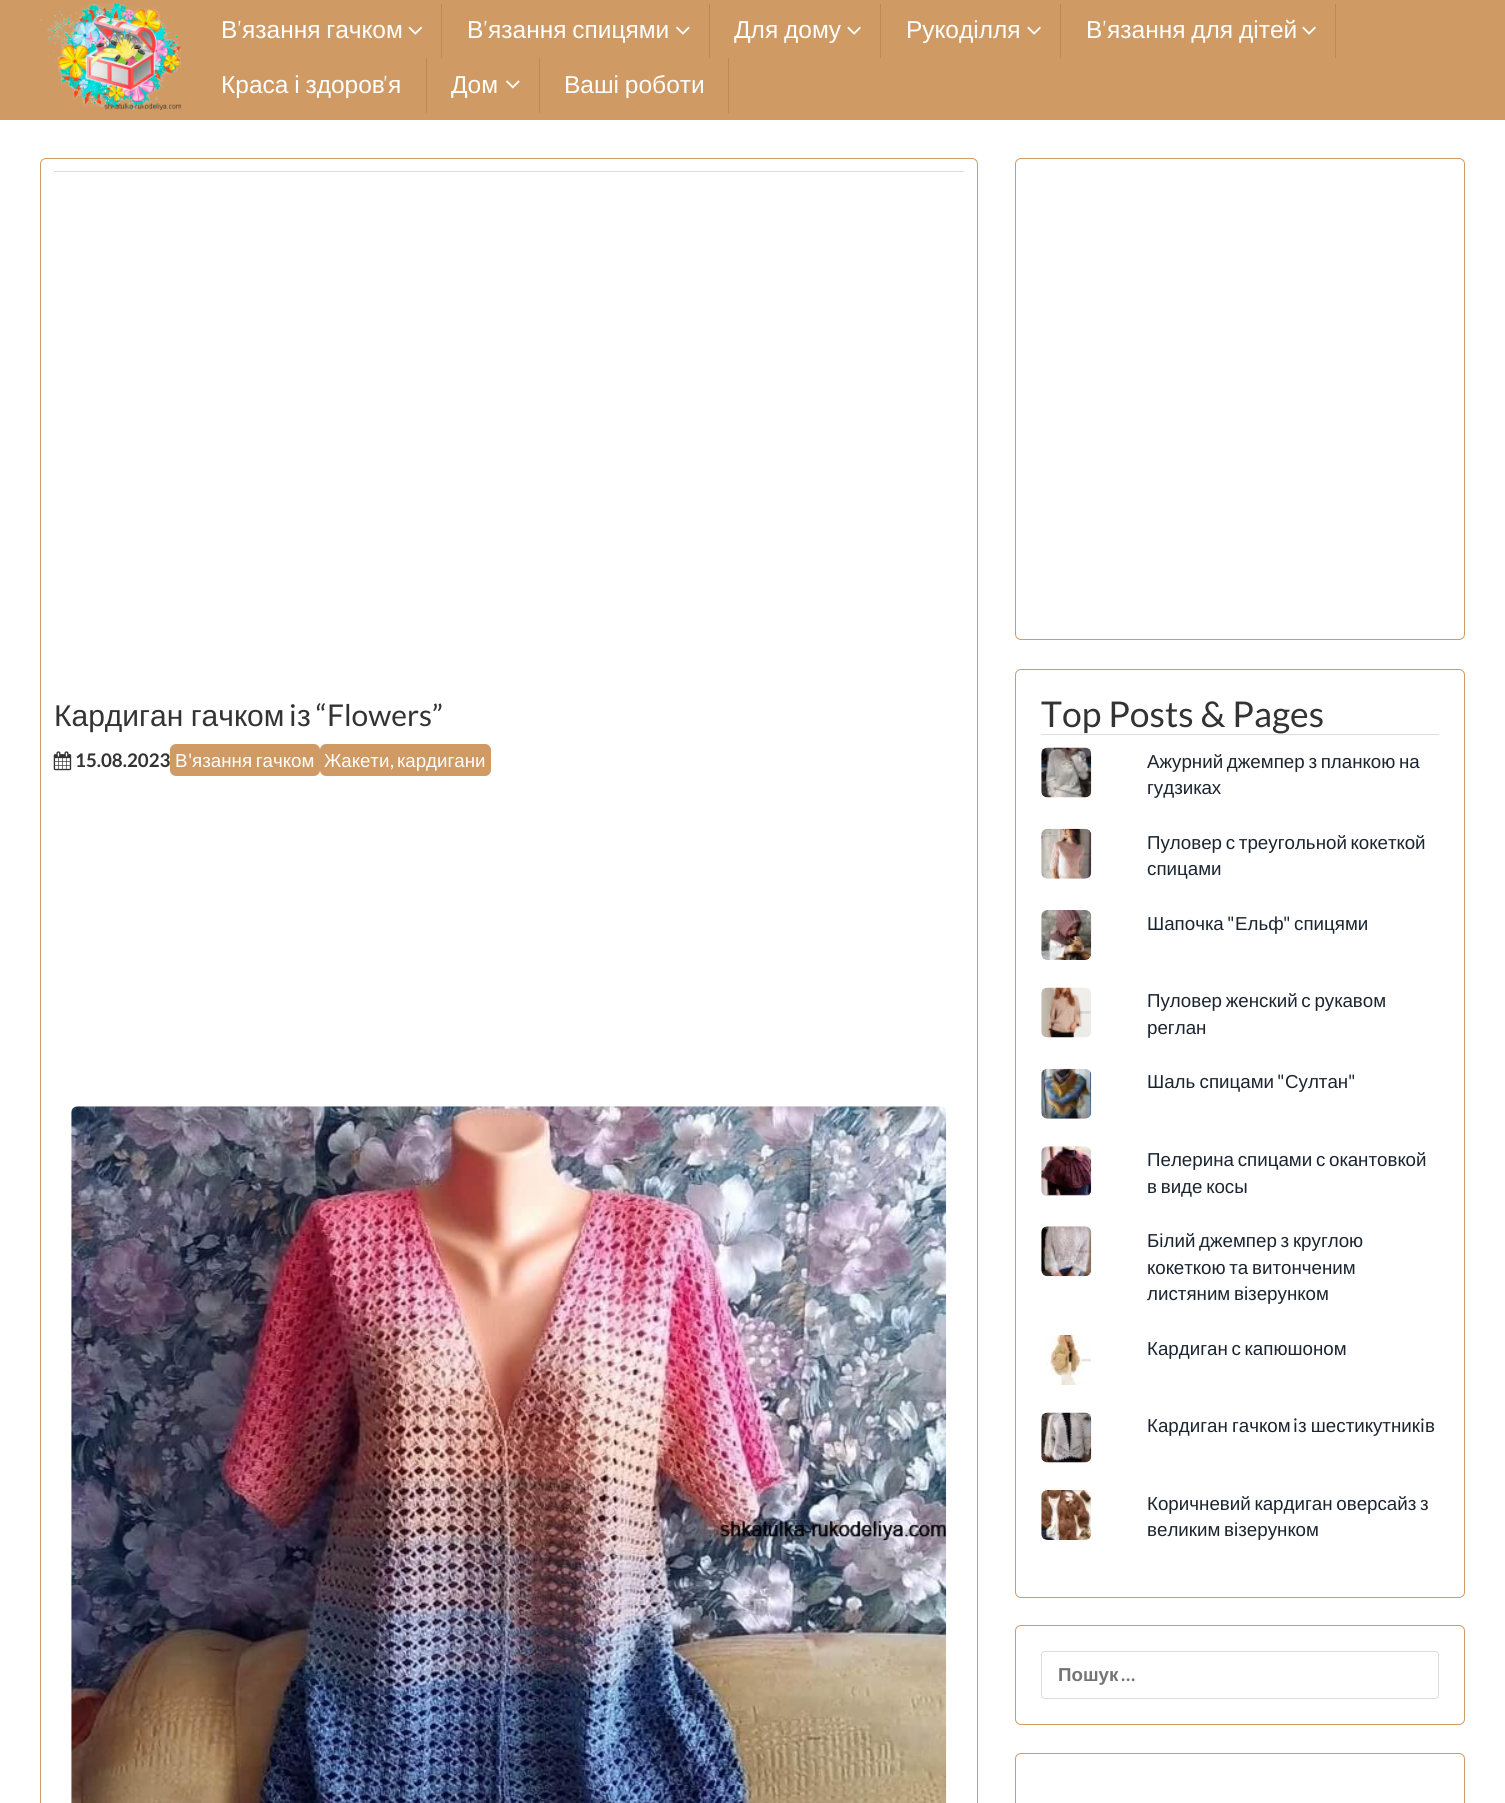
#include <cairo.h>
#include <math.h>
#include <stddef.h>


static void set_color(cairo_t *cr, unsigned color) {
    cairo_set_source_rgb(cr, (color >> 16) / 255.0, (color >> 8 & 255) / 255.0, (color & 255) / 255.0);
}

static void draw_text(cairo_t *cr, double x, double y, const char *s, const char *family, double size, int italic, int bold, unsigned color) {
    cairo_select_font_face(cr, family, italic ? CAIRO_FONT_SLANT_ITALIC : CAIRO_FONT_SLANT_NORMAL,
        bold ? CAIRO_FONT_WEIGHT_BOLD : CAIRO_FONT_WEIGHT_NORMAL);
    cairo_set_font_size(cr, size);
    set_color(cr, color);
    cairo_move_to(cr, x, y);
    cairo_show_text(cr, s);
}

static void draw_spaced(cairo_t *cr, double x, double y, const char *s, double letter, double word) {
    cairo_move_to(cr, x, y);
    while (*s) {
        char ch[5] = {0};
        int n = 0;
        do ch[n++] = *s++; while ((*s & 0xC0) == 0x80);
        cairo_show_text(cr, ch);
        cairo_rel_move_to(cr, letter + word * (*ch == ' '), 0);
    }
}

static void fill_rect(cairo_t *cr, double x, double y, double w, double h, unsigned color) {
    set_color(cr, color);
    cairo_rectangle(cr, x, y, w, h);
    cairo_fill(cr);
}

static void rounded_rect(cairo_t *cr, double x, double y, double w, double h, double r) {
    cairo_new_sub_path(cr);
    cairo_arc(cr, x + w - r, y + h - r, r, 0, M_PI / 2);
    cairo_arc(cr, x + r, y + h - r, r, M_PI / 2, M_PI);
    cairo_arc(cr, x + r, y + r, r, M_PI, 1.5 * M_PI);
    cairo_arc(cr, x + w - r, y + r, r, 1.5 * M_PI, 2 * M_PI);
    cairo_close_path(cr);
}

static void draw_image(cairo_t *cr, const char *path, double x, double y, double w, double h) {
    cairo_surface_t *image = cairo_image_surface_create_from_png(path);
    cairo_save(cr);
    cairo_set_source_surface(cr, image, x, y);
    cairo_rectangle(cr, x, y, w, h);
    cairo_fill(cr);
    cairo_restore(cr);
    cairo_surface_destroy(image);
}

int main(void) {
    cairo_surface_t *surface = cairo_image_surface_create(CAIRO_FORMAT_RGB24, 1505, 1803);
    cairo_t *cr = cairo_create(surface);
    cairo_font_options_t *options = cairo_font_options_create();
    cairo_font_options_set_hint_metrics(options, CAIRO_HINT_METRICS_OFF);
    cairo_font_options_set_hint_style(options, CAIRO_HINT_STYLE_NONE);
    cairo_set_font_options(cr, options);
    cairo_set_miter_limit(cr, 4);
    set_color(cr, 0xFFFFFF);
    cairo_paint(cr);
    fill_rect(cr, 0, 0, 1505, 120, 0xCF9A64);
    draw_image(cr, "assets/img1.png", 40, 3, 142, 107);
    fill_rect(cr, 441, 4, 1, 54, 0xBA8B5A);
    draw_text(cr, 221, 38, "В", "Liberation Sans", 24.5, 0, 0, 0xFFFFFF);
    draw_text(cr, 237, 38, "’", "Abel", 24.5, 0, 0, 0xFFFFFF);
    cairo_select_font_face(cr, "Liberation Sans", CAIRO_FONT_SLANT_NORMAL, CAIRO_FONT_WEIGHT_NORMAL);
    draw_spaced(cr, 242, 38, "язання гачком", 0, -1);
    draw_image(cr, "assets/img2.png", 408, 26, 15, 9);
    fill_rect(cr, 709, 4, 1, 54, 0xBA8B5A);
    draw_text(cr, 467, 38, "В", "Liberation Sans", 24.5, 0, 0, 0xFFFFFF);
    draw_text(cr, 483, 38, "’", "Abel", 24.5, 0, 0, 0xFFFFFF);
    cairo_select_font_face(cr, "Liberation Sans", CAIRO_FONT_SLANT_NORMAL, CAIRO_FONT_WEIGHT_NORMAL);
    draw_spaced(cr, 488, 38, "язання спицями", 0, -1);
    draw_image(cr, "assets/img3.png", 676, 26, 14, 9);
    fill_rect(cr, 880, 4, 1, 54, 0xBA8B5A);
    set_color(cr, 0xFFFFFF);
    draw_spaced(cr, 734, 38, "Для дому", 0, -1);
    draw_image(cr, "assets/img4.png", 847, 26, 14, 9);
    fill_rect(cr, 1060, 4, 1, 54, 0xBA8B5A);
    draw_text(cr, 906, 38, "Рукоділля", "Liberation Sans", 24.5, 0, 0, 0xFFFFFF);
    draw_image(cr, "assets/img4.png", 1027, 26, 14, 9);
    fill_rect(cr, 1335, 4, 1, 54, 0xBA8B5A);
    draw_text(cr, 1086, 38, "В", "Liberation Sans", 24.5, 0, 0, 0xFFFFFF);
    draw_text(cr, 1102, 38, "’", "Abel", 24.5, 0, 0, 0xFFFFFF);
    cairo_select_font_face(cr, "Liberation Sans", CAIRO_FONT_SLANT_NORMAL, CAIRO_FONT_WEIGHT_NORMAL);
    draw_spaced(cr, 1107, 38, "язання для дітей", 0, -1);
    draw_image(cr, "assets/img4.png", 1302, 26, 14, 9);
    fill_rect(cr, 426, 58, 1, 55, 0xBA8B5A);
    set_color(cr, 0xFFFFFF);
    draw_spaced(cr, 221, 93, "Краса і здоров", 0, -1);
    draw_text(cr, 383, 93, "’", "Abel", 24.5, 0, 0, 0xFFFFFF);
    draw_text(cr, 388, 93, "я", "Liberation Sans", 24.5, 0, 0, 0xFFFFFF);
    fill_rect(cr, 539, 58, 1, 55, 0xBA8B5A);
    draw_text(cr, 451, 93, "Дом", "Liberation Sans", 24.5, 0, 0, 0xFFFFFF);
    draw_image(cr, "assets/img5.png", 506, 80, 14, 9);
    fill_rect(cr, 728, 58, 1, 55, 0xBA8B5A);
    set_color(cr, 0xFFFFFF);
    draw_spaced(cr, 564, 93, "Ваші роботи", 0, -1);
    rounded_rect(cr, 40.5, 158.5, 937, 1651, 5.5);
    set_color(cr, 0xCF9A64);
    cairo_set_line_width(cr, 1);
    cairo_stroke(cr);
    fill_rect(cr, 54, 171, 910, 1, 0xDDDDDD);
    cairo_set_font_size(cr, 30);
    set_color(cr, 0x333333);
    draw_spaced(cr, 54, 726, "Кардиган гачком", 0, -1);
    draw_text(cr, 289, 726, "i", "Lato", 30, 0, 0, 0x333333);
    draw_text(cr, 297, 726, "з", "Liberation Sans", 30, 0, 0, 0x333333);
    draw_text(cr, 316, 726, "“Flowers”", "Lato", 30, 0, 0, 0x333333);
    draw_image(cr, "assets/img6.png", 53, 751, 19, 20);
    draw_text(cr, 75, 767, "15.08.2023", "Lato", 18.75, 0, 1, 0x333333);
    set_color(cr, 0xCF9A64);
    rounded_rect(cr, 171.5, 745.5, 147, 29, 4.5);
    cairo_fill_preserve(cr);
    cairo_set_line_width(cr, 3);
    cairo_stroke(cr);
    draw_text(cr, 175, 767, "В", "Liberation Sans", 18.75, 0, 0, 0xFFFFFF);
    draw_text(cr, 188, 767, "'", "Lato", 18.75, 0, 0, 0xFFFFFF);
    cairo_select_font_face(cr, "Liberation Sans", CAIRO_FONT_SLANT_NORMAL, CAIRO_FONT_WEIGHT_NORMAL);
    draw_spaced(cr, 192, 767, "язання гачком", 0, -1.5);
    set_color(cr, 0xCF9A64);
    rounded_rect(cr, 321.5, 745.5, 168, 29, 4.5);
    cairo_fill_preserve(cr);
    cairo_stroke(cr);
    draw_text(cr, 324, 767, "Жакети", "Liberation Sans", 18.75, 0, 0, 0xFFFFFF);
    draw_text(cr, 390, 767, ",", "Lato", 18.75, 0, 0, 0xFFFFFF);
    draw_text(cr, 397, 767, "кардигани", "Liberation Sans", 18.75, 0, 0, 0xFFFFFF);
    draw_image(cr, "assets/img7.png", 71, 1106, 876, 697);
    rounded_rect(cr, 1015.5, 158.5, 449, 481, 5.5);
    set_color(cr, 0xCF9A64);
    cairo_set_line_width(cr, 1);
    cairo_stroke(cr);
    rounded_rect(cr, 1015.5, 669.5, 449, 928, 5.5);
    cairo_stroke(cr);
    fill_rect(cr, 1041, 734, 398, 1, 0xDDDDDD);
    draw_text(cr, 1041, 727, "Top Posts & Pages", "Lato", 35.5, 0, 0, 0x333333);
    draw_image(cr, "assets/img8.png", 1041, 747, 51, 51);
    cairo_select_font_face(cr, "Liberation Sans", CAIRO_FONT_SLANT_NORMAL, CAIRO_FONT_WEIGHT_NORMAL);
    cairo_set_font_size(cr, 18.75);
    set_color(cr, 0x1B242F);
    draw_spaced(cr, 1147, 768, "Ажурний джемпер з планкою на", 0, -1.5);
    draw_text(cr, 1147, 794, "гудзиках", "Liberation Sans", 18.75, 0, 0, 0x1B242F);
    draw_image(cr, "assets/img9.png", 1041, 828, 51, 51);
    draw_spaced(cr, 1147, 849, "Пуловер с треугольной кокеткой", 0, -1.5);
    draw_text(cr, 1147, 875, "спицами", "Liberation Sans", 18.75, 0, 0, 0x1B242F);
    draw_image(cr, "assets/img10.png", 1041, 910, 51, 50);
    draw_text(cr, 1147, 930, "Шапочка", "Liberation Sans", 18.75, 0, 0, 0x1B242F);
    draw_text(cr, 1227, 930, "\"", "Lato", 18.75, 0, 0, 0x1B242F);
    draw_text(cr, 1235, 930, "Ельф", "Liberation Sans", 18.75, 0, 0, 0x1B242F);
    draw_text(cr, 1283, 930, "\"", "Lato", 18.75, 0, 0, 0x1B242F);
    draw_text(cr, 1294, 930, "спицями", "Liberation Sans", 18.75, 0, 0, 0x1B242F);
    draw_image(cr, "assets/img11.png", 1041, 987, 50, 51);
    draw_spaced(cr, 1147, 1007, "Пуловер женский с рукавом", 0, -1.5);
    draw_text(cr, 1147, 1034, "реглан", "Liberation Sans", 18.75, 0, 0, 0x1B242F);
    draw_image(cr, "assets/img12.png", 1041, 1068, 51, 51);
    draw_spaced(cr, 1147, 1088, "Шаль спицами", 0, -1);
    draw_text(cr, 1277, 1088, "\"", "Lato", 18.75, 0, 0, 0x1B242F);
    draw_text(cr, 1285, 1088, "Султан", "Liberation Sans", 18.75, 0, 0, 0x1B242F);
    draw_text(cr, 1348, 1088, "\"", "Lato", 18.75, 0, 0, 0x1B242F);
    draw_image(cr, "assets/img13.png", 1041, 1146, 51, 50);
    cairo_select_font_face(cr, "Liberation Sans", CAIRO_FONT_SLANT_NORMAL, CAIRO_FONT_WEIGHT_NORMAL);
    draw_spaced(cr, 1147, 1166, "Пелерина спицами с окантовкой", 0, -1.5);
    draw_spaced(cr, 1147, 1193, "в виде косы", 0, -1.5);
    draw_image(cr, "assets/img14.png", 1041, 1226, 51, 51);
    draw_spaced(cr, 1147, 1247, "Білий джемпер з круглою", 0, -1.5);
    draw_spaced(cr, 1147, 1274, "кокеткою та витонченим", 0, -1.5);
    draw_spaced(cr, 1147, 1300, "листяним візерунком", 0, -1.5);
    draw_image(cr, "assets/img15.png", 1046, 1335, 45, 50);
    draw_spaced(cr, 1147, 1355, "Кардиган с капюшоном", 0, -1.5);
    draw_image(cr, "assets/img16.png", 1041, 1412, 51, 51);
    draw_spaced(cr, 1147, 1432, "Кардиган гачком", 0, -1);
    draw_text(cr, 1293, 1432, "i", "Lato", 18.75, 0, 0, 0x1B242F);
    cairo_select_font_face(cr, "Liberation Sans", CAIRO_FONT_SLANT_NORMAL, CAIRO_FONT_WEIGHT_NORMAL);
    draw_spaced(cr, 1298, 1432, "з шестикутник", 0, -1);
    draw_text(cr, 1420, 1432, "i", "Lato", 18.75, 0, 0, 0x1B242F);
    draw_text(cr, 1425, 1432, "в", "Liberation Sans", 18.75, 0, 0, 0x1B242F);
    draw_image(cr, "assets/img17.png", 1041, 1490, 51, 50);
    draw_spaced(cr, 1147, 1510, "Коричневий кардиган оверсайз з", 0, -1.5);
    draw_spaced(cr, 1147, 1536, "великим візерунком", 0, -1.5);
    rounded_rect(cr, 1015.5, 1625.5, 449, 99, 5.5);
    set_color(cr, 0xCF9A64);
    cairo_stroke(cr);
    rounded_rect(cr, 1041.5, 1651.5, 397, 47, 3.5);
    set_color(cr, 0xDDDDDD);
    cairo_stroke(cr);
    draw_text(cr, 1058, 1681, "Пошук", "Liberation Sans", 18.75, 0, 1, 0x757575);
    draw_text(cr, 1121, 1681, "…", "Lato", 18.75, 0, 1, 0x757575);
    rounded_rect(cr, 1015.5, 1753.5, 449, 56, 5.5);
    set_color(cr, 0xCF9A64);
    cairo_stroke(cr);
    cairo_surface_write_to_png(surface, "output.png");
    cairo_font_options_destroy(options);
    cairo_destroy(cr);
    cairo_surface_destroy(surface);
    return 0;
}
